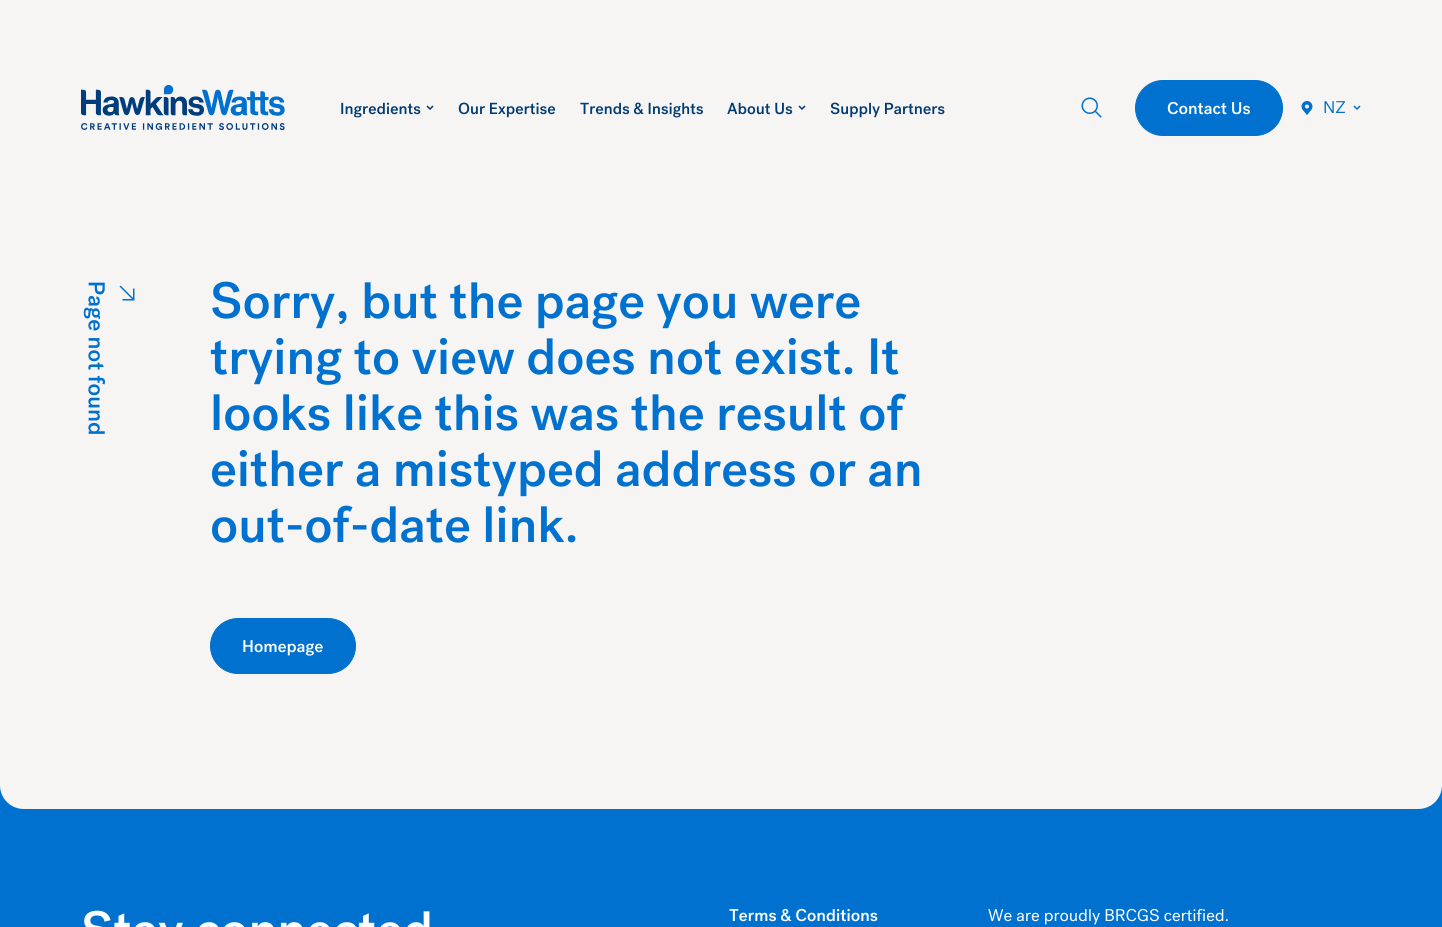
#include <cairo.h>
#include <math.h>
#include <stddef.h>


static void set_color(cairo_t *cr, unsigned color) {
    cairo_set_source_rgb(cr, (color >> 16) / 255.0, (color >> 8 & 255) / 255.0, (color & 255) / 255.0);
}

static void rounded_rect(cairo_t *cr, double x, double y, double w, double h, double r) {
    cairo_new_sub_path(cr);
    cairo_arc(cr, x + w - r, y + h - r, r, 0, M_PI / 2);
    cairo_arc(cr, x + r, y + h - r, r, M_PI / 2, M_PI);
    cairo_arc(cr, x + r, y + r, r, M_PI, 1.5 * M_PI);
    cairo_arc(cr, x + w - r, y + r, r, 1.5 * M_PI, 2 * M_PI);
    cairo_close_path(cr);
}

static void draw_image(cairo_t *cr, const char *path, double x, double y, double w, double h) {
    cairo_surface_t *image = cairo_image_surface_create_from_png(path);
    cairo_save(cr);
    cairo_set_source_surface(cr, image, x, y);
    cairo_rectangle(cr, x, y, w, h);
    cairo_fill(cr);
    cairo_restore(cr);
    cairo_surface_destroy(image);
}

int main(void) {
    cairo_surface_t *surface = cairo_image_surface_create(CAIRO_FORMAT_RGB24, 1442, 927);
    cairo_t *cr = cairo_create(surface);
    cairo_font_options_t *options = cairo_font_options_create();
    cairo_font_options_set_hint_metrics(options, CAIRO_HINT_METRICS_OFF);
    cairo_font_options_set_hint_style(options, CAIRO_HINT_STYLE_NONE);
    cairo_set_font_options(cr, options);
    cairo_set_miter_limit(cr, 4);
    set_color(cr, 0x0071CE);
    cairo_paint(cr);
    set_color(cr, 0xF6F5F4);
    cairo_new_path(cr);
    cairo_move_to(cr, 0, 0);
    cairo_line_to(cr, 1442, 0);
    cairo_line_to(cr, 1442, 785);
    cairo_curve_to(cr, 1442, 798.5, 1431.5, 809, 1418, 809);
    cairo_line_to(cr, 24, 809);
    cairo_curve_to(cr, 10.5, 809, 0, 798.5, 0, 785);
    cairo_close_path(cr);
    cairo_fill(cr);
    draw_image(cr, "assets/img1.png", 83, 282, 22, 152);
    draw_image(cr, "assets/img2.png", 119, 285, 16, 16);
    draw_image(cr, "assets/img3.png", 212, 281, 648, 48);
    draw_image(cr, "assets/img4.png", 210, 337, 689, 48);
    draw_image(cr, "assets/img5.png", 213, 393, 694, 38);
    draw_image(cr, "assets/img6.png", 212, 449, 708, 48);
    draw_image(cr, "assets/img7.png", 212, 505, 364, 38);
    set_color(cr, 0x0071CE);
    rounded_rect(cr, 210.5, 618.5, 145, 55, 27.5);
    cairo_fill_preserve(cr);
    cairo_set_line_width(cr, 1);
    cairo_stroke(cr);
    draw_image(cr, "assets/img8.png", 243, 640, 80, 16);
    draw_image(cr, "assets/img9.png", 81, 85, 204, 45);
    draw_image(cr, "assets/img10.png", 341, 102, 80, 16);
    draw_image(cr, "assets/img11.png", 426, 105, 8, 5);
    draw_image(cr, "assets/img12.png", 458, 102, 98, 16);
    draw_image(cr, "assets/img13.png", 580, 102, 123, 16);
    draw_image(cr, "assets/img14.png", 727, 102, 66, 13);
    draw_image(cr, "assets/img11.png", 798, 105, 8, 5);
    draw_image(cr, "assets/img15.png", 830, 102, 115, 16);
    draw_image(cr, "assets/img16.png", 1081, 97, 21, 21);
    rounded_rect(cr, 1135.5, 80.5, 147, 55, 27.5);
    cairo_fill_preserve(cr);
    cairo_stroke(cr);
    draw_image(cr, "assets/img17.png", 1167, 101, 83, 14);
    draw_image(cr, "assets/img18.png", 1301, 101, 12, 14);
    draw_image(cr, "assets/img19.png", 1324, 101, 21, 12);
    draw_image(cr, "assets/img20.png", 1353, 105, 8, 5);
    draw_image(cr, "assets/img21.png", 84, 910, 346, 17);
    draw_image(cr, "assets/img22.png", 729, 908, 149, 14);
    draw_image(cr, "assets/img23.png", 988, 908, 240, 17);
    cairo_surface_write_to_png(surface, "output.png");
    cairo_font_options_destroy(options);
    cairo_destroy(cr);
    cairo_surface_destroy(surface);
    return 0;
}
